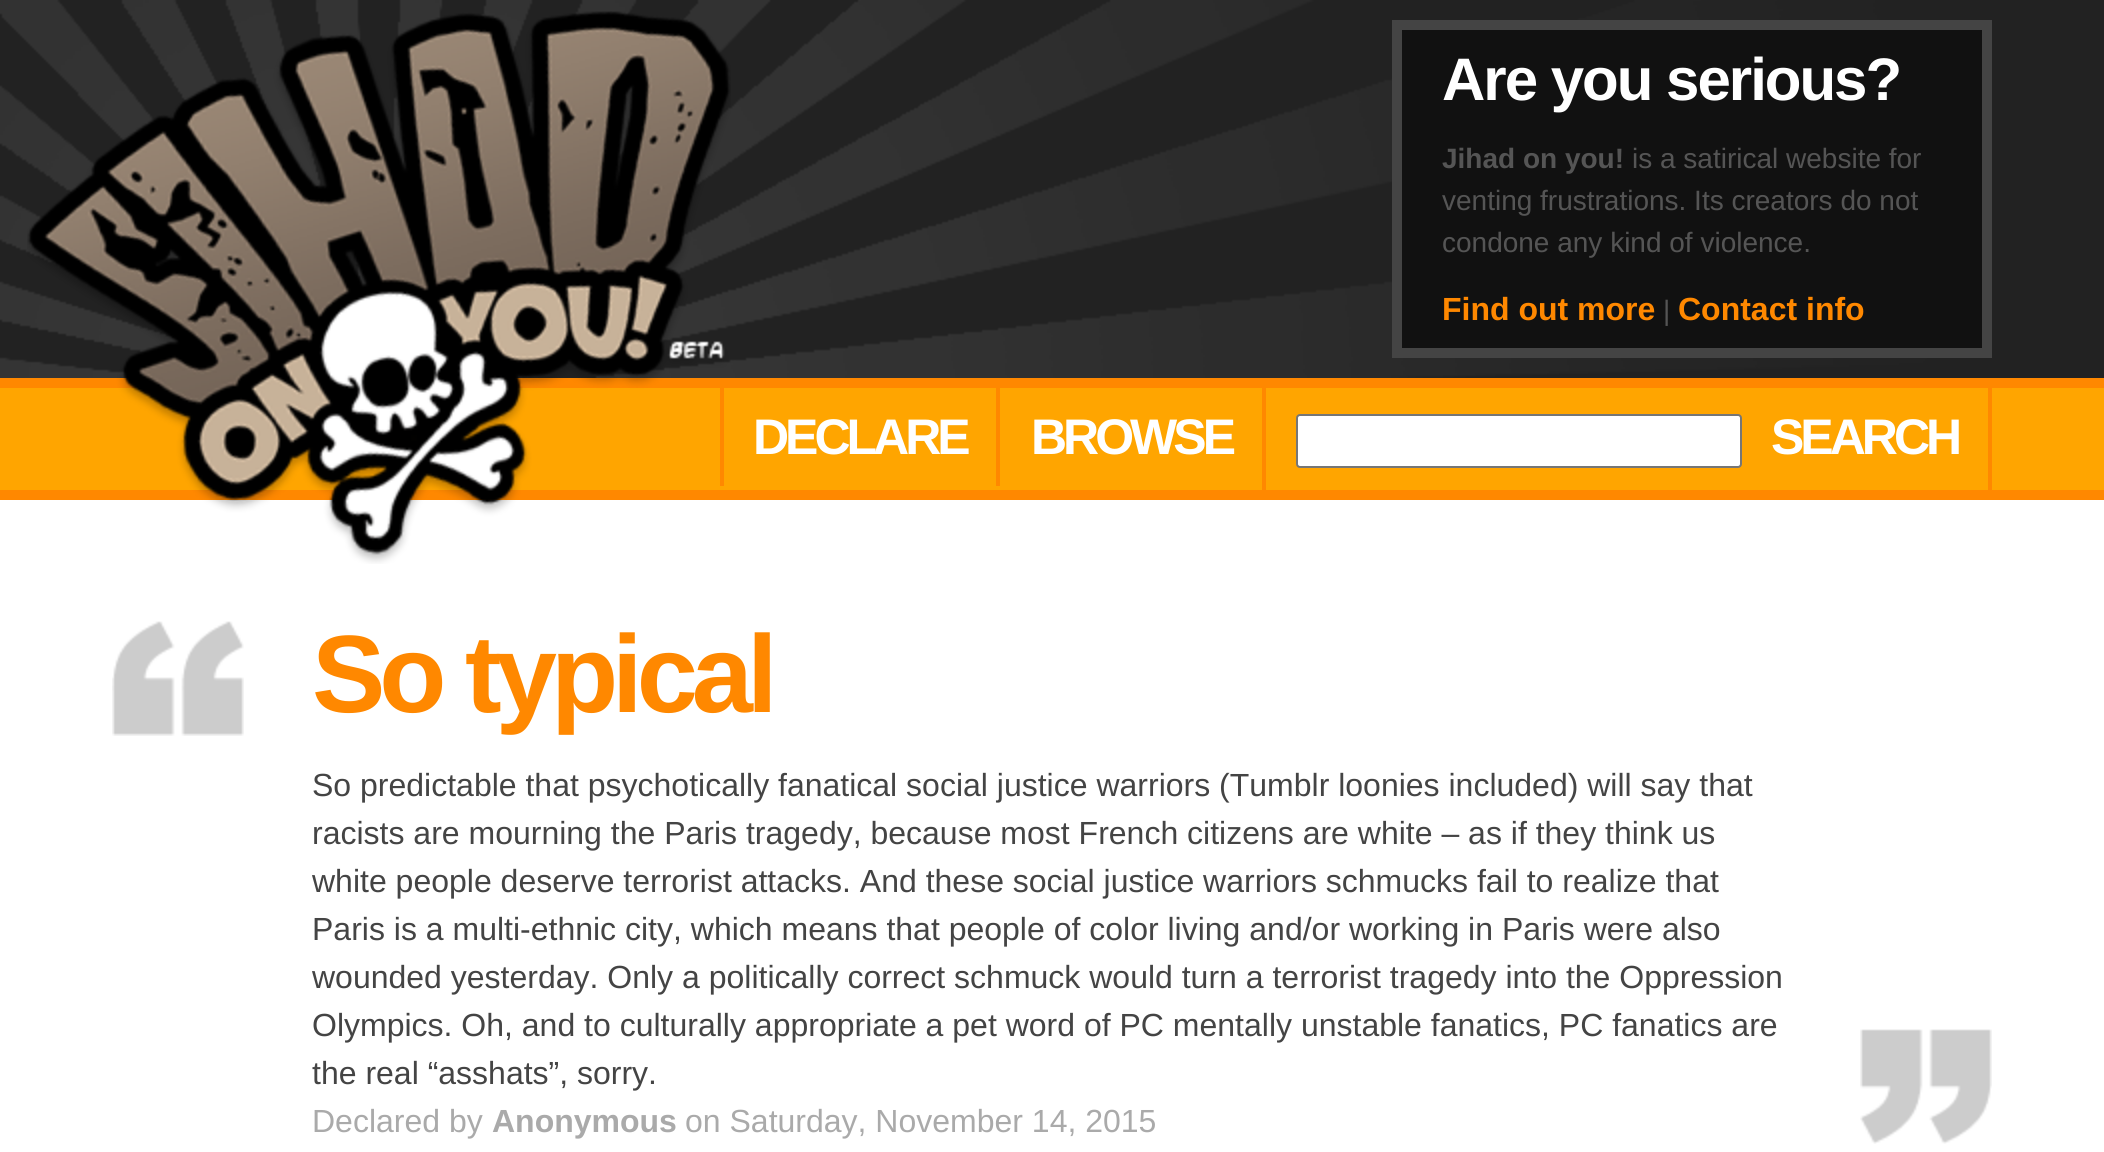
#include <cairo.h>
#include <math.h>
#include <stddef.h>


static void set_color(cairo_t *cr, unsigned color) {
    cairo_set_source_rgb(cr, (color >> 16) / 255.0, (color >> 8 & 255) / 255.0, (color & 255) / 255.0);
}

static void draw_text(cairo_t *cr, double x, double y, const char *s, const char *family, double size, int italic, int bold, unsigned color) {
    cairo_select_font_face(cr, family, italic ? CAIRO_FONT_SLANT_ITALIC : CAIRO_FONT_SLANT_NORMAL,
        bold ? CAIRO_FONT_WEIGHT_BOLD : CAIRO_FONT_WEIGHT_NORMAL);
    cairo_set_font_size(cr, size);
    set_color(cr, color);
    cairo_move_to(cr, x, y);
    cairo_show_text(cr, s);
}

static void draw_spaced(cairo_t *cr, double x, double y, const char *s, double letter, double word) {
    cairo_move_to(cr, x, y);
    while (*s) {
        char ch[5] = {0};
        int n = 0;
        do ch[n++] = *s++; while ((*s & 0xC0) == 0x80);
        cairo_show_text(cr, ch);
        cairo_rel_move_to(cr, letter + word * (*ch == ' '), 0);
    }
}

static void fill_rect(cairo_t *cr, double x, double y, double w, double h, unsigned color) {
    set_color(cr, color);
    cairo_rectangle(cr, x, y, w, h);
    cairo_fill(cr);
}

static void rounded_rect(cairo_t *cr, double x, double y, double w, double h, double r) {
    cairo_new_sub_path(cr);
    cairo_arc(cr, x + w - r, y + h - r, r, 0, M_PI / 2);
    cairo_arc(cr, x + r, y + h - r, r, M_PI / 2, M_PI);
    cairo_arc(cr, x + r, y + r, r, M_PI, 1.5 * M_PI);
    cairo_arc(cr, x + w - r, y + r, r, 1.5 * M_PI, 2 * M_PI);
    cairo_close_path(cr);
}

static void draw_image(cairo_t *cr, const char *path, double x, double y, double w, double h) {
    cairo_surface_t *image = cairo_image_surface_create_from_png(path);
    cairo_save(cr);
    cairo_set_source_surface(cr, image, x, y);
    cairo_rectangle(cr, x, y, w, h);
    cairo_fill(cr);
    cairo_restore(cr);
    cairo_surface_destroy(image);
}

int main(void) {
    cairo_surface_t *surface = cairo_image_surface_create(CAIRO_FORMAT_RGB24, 2104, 1152);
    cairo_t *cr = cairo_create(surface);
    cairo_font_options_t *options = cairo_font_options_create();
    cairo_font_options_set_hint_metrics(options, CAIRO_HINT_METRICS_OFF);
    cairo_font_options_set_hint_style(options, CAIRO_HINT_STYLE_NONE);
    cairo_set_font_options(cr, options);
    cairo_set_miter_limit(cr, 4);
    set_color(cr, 0xFFFFFF);
    cairo_paint(cr);
    draw_image(cr, "assets/img1.png", 0, 0, 2104, 378);
    fill_rect(cr, 0, 388, 2104, 102, 0xFFA500);
    fill_rect(cr, 0, 378, 2104, 10, 0xFF8800);
    fill_rect(cr, 0, 490, 2104, 10, 0xFF8800);
    fill_rect(cr, 720, 388, 4, 98, 0xFF8800);
    draw_image(cr, "assets/img2.png", 27, 11, 704, 553);
    set_color(cr, 0x111111);
    cairo_rectangle(cr, 1397, 25, 590, 328);
    cairo_fill_preserve(cr);
    set_color(cr, 0x444444);
    cairo_set_line_width(cr, 10);
    cairo_stroke(cr);
    cairo_select_font_face(cr, "Liberation Sans", CAIRO_FONT_SLANT_NORMAL, CAIRO_FONT_WEIGHT_BOLD);
    cairo_set_font_size(cr, 60);
    set_color(cr, 0xFFFFFF);
    draw_spaced(cr, 1442, 100, "Are you serious?", -2, 0);
    draw_text(cr, 1442, 168, "Jihad on you!", "Liberation Sans", 28, 0, 1, 0x555555);
    draw_text(cr, 1632, 168, "is a satirical website for", "Liberation Sans", 28, 0, 0, 0x555555);
    draw_text(cr, 1442, 210, "venting frustrations. Its creators do not", "Liberation Sans", 28, 0, 0, 0x555555);
    draw_text(cr, 1442, 252, "condone any kind of violence.", "Liberation Sans", 28, 0, 0, 0x555555);
    draw_text(cr, 1442, 320, "Find out more", "Liberation Sans", 32, 0, 1, 0xFF8800);
    draw_text(cr, 1663, 320, "|", "Liberation Sans", 28, 0, 0, 0x555555);
    draw_text(cr, 1678, 320, "Contact info", "Liberation Sans", 32, 0, 1, 0xFF8800);
    fill_rect(cr, 1988, 388, 4, 102, 0xFF8800);
    cairo_set_font_size(cr, 50);
    set_color(cr, 0xFFFFFF);
    draw_spaced(cr, 753, 454, "DECLARE", -4, 0);
    fill_rect(cr, 996, 388, 4, 98, 0xFF8800);
    set_color(cr, 0xFFFFFF);
    draw_spaced(cr, 1031, 454, "BROWSE", -4, 0);
    fill_rect(cr, 1262, 388, 4, 102, 0xFF8800);
    set_color(cr, 0xFFFFFF);
    rounded_rect(cr, 1297, 415, 444, 52, 3);
    cairo_fill_preserve(cr);
    set_color(cr, 0x767676);
    cairo_set_line_width(cr, 2);
    cairo_stroke(cr);
    set_color(cr, 0xFFFFFF);
    draw_spaced(cr, 1771, 454, "SEARCH", -4, 0);
    draw_image(cr, "assets/img3.png", 112, 621, 132, 115);
    draw_image(cr, "assets/img4.png", 1860, 1029, 132, 115);
    cairo_set_font_size(cr, 110);
    set_color(cr, 0xFF8800);
    draw_spaced(cr, 312, 712, "So typical", -6, 0);
    draw_text(cr, 312, 796, "So predictable that psychotically fanatical social justice warriors (Tumblr loonies included) will say that", "Liberation Sans", 32, 0, 0, 0x444444);
    draw_text(cr, 312, 844, "racists are mourning the Paris tragedy, because most French citizens are white – as if they think us", "Liberation Sans", 32, 0, 0, 0x444444);
    draw_text(cr, 312, 892, "white people deserve terrorist attacks. And these social justice warriors schmucks fail to realize that", "Liberation Sans", 32, 0, 0, 0x444444);
    draw_text(cr, 312, 940, "Paris is a multi-ethnic city, which means that people of color living and/or working in Paris were also", "Liberation Sans", 32, 0, 0, 0x444444);
    draw_text(cr, 312, 988, "wounded yesterday. Only a politically correct schmuck would turn a terrorist tragedy into the Oppression", "Liberation Sans", 32, 0, 0, 0x444444);
    draw_text(cr, 312, 1036, "Olympics. Oh, and to culturally appropriate a pet word of PC mentally unstable fanatics, PC fanatics are", "Liberation Sans", 32, 0, 0, 0x444444);
    draw_text(cr, 312, 1084, "the real “asshats”, sorry.", "Liberation Sans", 32, 0, 0, 0x444444);
    draw_text(cr, 312, 1132, "Declared by", "Liberation Sans", 32, 0, 0, 0xAAAAAA);
    draw_text(cr, 492, 1132, "Anonymous", "Liberation Sans", 32, 0, 1, 0xAAAAAA);
    draw_text(cr, 685, 1132, "on Saturday, November 14, 2015", "Liberation Sans", 32, 0, 0, 0xAAAAAA);
    cairo_surface_write_to_png(surface, "output.png");
    cairo_font_options_destroy(options);
    cairo_destroy(cr);
    cairo_surface_destroy(surface);
    return 0;
}
